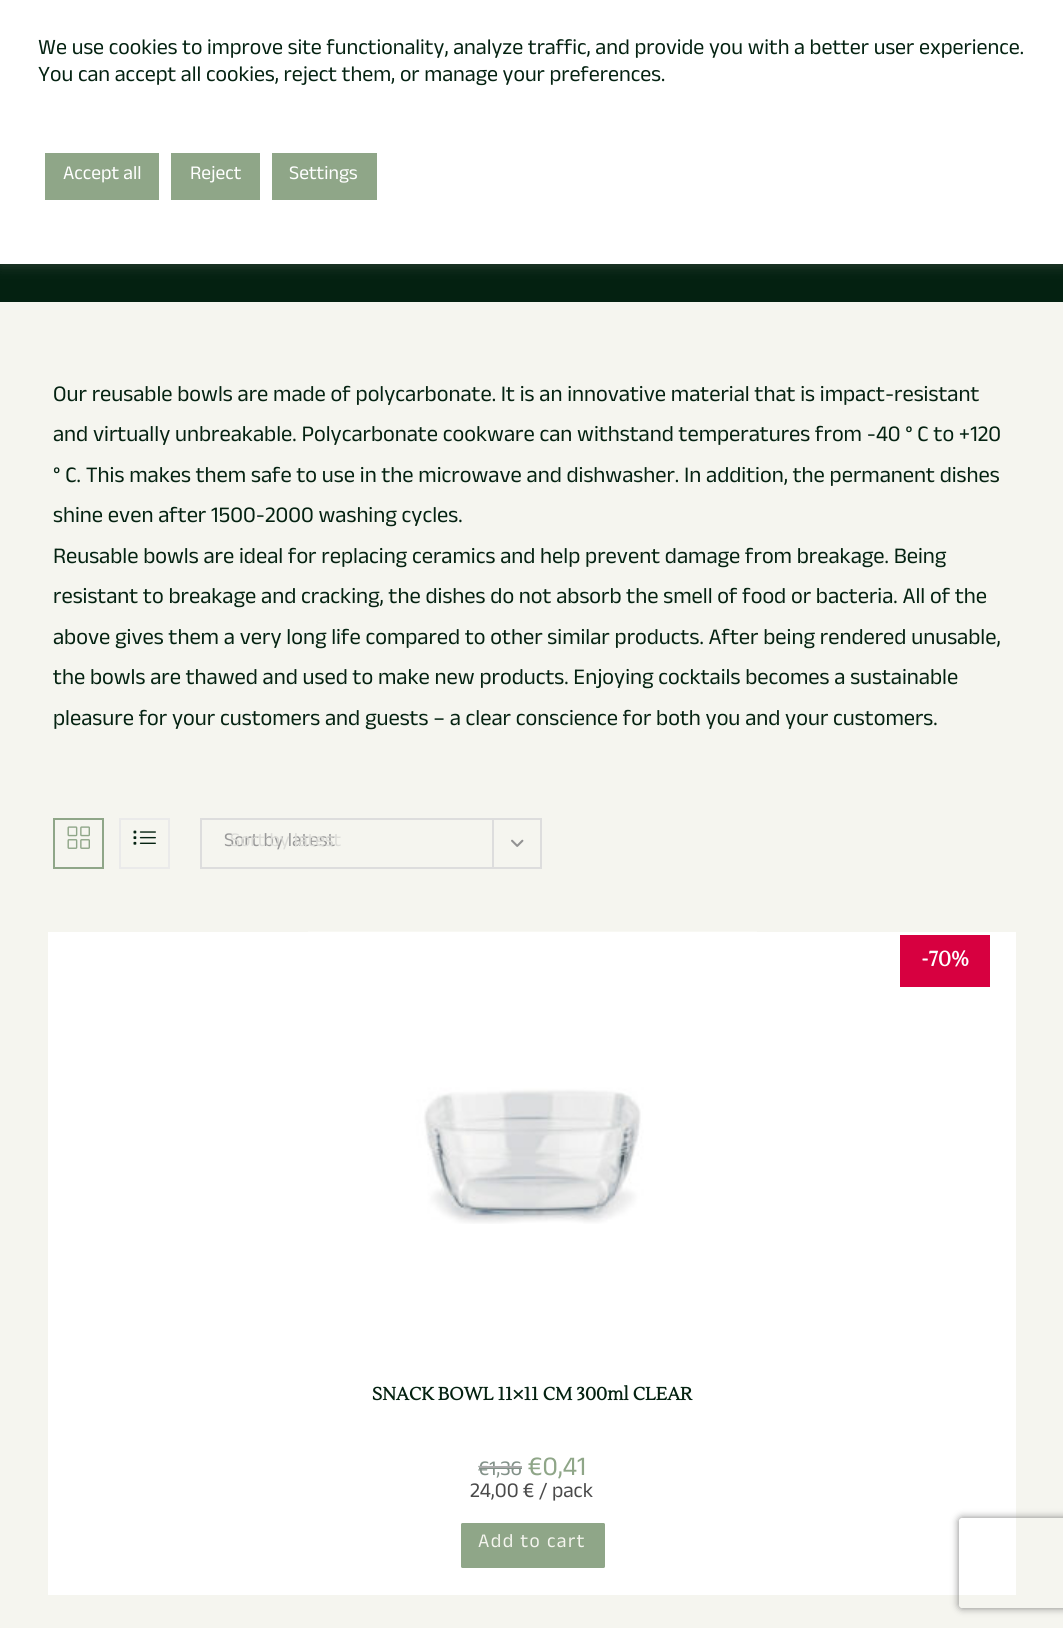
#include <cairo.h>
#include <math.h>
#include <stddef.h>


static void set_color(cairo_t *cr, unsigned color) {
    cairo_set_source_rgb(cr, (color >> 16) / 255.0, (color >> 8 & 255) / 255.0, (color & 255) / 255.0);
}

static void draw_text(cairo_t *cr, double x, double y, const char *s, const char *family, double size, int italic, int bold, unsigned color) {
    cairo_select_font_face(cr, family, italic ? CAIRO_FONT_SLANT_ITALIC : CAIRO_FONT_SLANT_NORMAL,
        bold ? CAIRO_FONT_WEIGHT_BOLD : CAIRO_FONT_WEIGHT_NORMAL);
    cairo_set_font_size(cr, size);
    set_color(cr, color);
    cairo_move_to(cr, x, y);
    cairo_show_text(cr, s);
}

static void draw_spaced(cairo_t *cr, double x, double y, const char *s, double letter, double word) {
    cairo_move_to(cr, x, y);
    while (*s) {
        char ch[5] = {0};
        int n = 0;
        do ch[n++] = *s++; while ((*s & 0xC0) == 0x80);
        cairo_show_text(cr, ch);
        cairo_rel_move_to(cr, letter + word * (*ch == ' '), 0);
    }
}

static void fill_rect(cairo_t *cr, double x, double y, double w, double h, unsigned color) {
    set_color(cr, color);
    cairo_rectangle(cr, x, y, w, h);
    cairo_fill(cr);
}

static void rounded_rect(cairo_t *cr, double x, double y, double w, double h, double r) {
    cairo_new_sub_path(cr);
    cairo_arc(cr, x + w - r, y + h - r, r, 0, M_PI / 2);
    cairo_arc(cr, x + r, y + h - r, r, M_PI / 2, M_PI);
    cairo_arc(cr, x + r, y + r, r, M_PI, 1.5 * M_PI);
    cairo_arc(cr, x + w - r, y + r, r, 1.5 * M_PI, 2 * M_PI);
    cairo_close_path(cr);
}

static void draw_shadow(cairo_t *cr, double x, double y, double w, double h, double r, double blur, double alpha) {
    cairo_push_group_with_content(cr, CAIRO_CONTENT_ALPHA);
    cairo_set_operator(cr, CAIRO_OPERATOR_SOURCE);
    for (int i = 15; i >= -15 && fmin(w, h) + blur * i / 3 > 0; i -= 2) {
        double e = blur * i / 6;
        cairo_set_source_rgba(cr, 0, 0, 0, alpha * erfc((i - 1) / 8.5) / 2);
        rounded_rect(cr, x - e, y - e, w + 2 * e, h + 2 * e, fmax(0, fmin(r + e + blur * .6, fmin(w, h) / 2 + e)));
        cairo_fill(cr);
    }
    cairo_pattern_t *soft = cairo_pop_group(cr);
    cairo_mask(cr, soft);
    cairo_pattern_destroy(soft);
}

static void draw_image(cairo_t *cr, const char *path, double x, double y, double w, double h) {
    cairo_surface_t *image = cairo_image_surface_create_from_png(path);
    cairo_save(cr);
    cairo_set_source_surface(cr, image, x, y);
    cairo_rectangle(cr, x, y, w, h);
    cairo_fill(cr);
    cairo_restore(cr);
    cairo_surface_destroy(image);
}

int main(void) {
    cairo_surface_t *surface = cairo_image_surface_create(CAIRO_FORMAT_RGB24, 1063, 1628);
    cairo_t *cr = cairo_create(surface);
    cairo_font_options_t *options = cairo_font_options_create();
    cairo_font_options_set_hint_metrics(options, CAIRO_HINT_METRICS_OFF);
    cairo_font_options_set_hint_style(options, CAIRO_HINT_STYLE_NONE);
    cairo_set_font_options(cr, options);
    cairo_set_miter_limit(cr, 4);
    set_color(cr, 0xF5F5EF);
    cairo_paint(cr);
    fill_rect(cr, 0, 264, 1063, 38, 0x042111);
    set_color(cr, 0xACABAB);
    draw_shadow(cr, 0, -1, 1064, 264, 0, 7.5, 0.3);
    fill_rect(cr, 0, 0, 1063, 264, 0xFFFFFF);
    draw_text(cr, 38, 54, "We use cookies to improve site functionality, analyze traffic, and provide you with a better user experience.", "Anek Devanagari", 22, 0, 0, 0x042211);
    draw_text(cr, 38, 81, "You can accept all cookies, reject them, or manage your preferences.", "Anek Devanagari", 22, 0, 0, 0x042211);
    fill_rect(cr, 45, 153, 114, 47, 0x8FA688);
    draw_text(cr, 63, 179, "Accept all", "Anek Devanagari", 19.5, 0, 0, 0xFFFFFF);
    fill_rect(cr, 171, 153, 89, 47, 0x8FA688);
    draw_text(cr, 190, 179, "Reject", "Anek Devanagari", 19.5, 0, 0, 0xFFFFFF);
    fill_rect(cr, 272, 153, 105, 47, 0x8FA688);
    draw_text(cr, 289, 179, "Settings", "Anek Devanagari", 19.5, 0, 0, 0xFFFFFF);
    draw_text(cr, 53, 401, "Our reusable bowls are made of polycarbonate. It is an innovative material that is impact-resistant", "Anek Devanagari", 22.5, 0, 0, 0x042211);
    draw_text(cr, 53, 441, "and virtually unbreakable. Polycarbonate cookware can withstand temperatures from -40 ° C to +120", "Anek Devanagari", 22.5, 0, 0, 0x042211);
    draw_text(cr, 53, 482, "° C. This makes them safe to use in the microwave and dishwasher. In addition, the permanent dishes", "Anek Devanagari", 22.5, 0, 0, 0x042211);
    draw_text(cr, 53, 522, "shine even after 1500-2000 washing cycles.", "Anek Devanagari", 22.5, 0, 0, 0x042211);
    draw_text(cr, 53, 563, "Reusable bowls are ideal for replacing ceramics and help prevent damage from breakage. Being", "Anek Devanagari", 22.5, 0, 0, 0x042211);
    draw_text(cr, 53, 603, "resistant to breakage and cracking, the dishes do not absorb the smell of food or bacteria. All of the", "Anek Devanagari", 22.5, 0, 0, 0x042211);
    draw_text(cr, 53, 644, "above gives them a very long life compared to other similar products. After being rendered unusable,", "Anek Devanagari", 22.5, 0, 0, 0x042211);
    draw_text(cr, 53, 684, "the bowls are thawed and used to make new products. Enjoying cocktails becomes a sustainable", "Anek Devanagari", 22.5, 0, 0, 0x042211);
    draw_text(cr, 53, 725, "pleasure for your customers and guests – a clear conscience for both you and your customers.", "Anek Devanagari", 22.5, 0, 0, 0x042211);
    cairo_rectangle(cr, 54, 819, 49, 49);
    set_color(cr, 0x8FA688);
    cairo_stroke(cr);
    draw_image(cr, "assets/img1.png", 67, 826, 23, 23);
    cairo_rectangle(cr, 120, 819, 49, 49);
    set_color(cr, 0xEAEAEA);
    cairo_stroke(cr);
    draw_image(cr, "assets/img2.png", 133, 830, 23, 15);
    cairo_rectangle(cr, 201, 819, 340, 49);
    set_color(cr, 0xDDDDDD);
    cairo_stroke(cr);
    draw_text(cr, 224, 846, "Sort by latest", "Anek Devanagari", 19.5, 0, 0, 0x999999);
    fill_rect(cr, 492, 819, 2, 48, 0xDDDDDD);
    draw_image(cr, "assets/img3.png", 511, 839, 13, 8);
    draw_text(cr, 230, 846, "Sort by latest", "Anek Devanagari", 19.5, 0, 0, 0xDCDCD8);
    fill_rect(cr, 48, 932, 968, 663, 0xFFFFFF);
    fill_rect(cr, 900, 935, 90, 52, 0xD70040);
    draw_text(cr, 921, 966, "-70%", "Lustria", 21, 0, 1, 0xFFFFFF);
    draw_image(cr, "assets/img4.png", 308, 931, 449, 293);
    draw_text(cr, 372, 1400, "SNACK BOWL 11×11 CM 300ml CLEAR", "Lustria", 18, 0, 1, 0x042211);
    draw_text(cr, 478, 1475, "€1,36", "Anek Devanagari", 21, 0, 0, 0x829188);
    fill_rect(cr, 479, 1468, 43, 1, 0x829188);
    fill_rect(cr, 479, 1466, 43, 2, 0xAAAAAA);
    draw_text(cr, 528, 1475, "€0,41", "Anek Devanagari", 27, 0, 0, 0x8FA688);
    draw_text(cr, 470, 1497, "24,00 € / pack", "Anek Devanagari", 21, 0, 0, 0x4A4A4A);
    set_color(cr, 0x8FA688);
    rounded_rect(cr, 461, 1523, 144, 45, 1.5);
    cairo_fill(cr);
    cairo_set_font_size(cr, 19.5);
    set_color(cr, 0xF5F5EF);
    draw_spaced(cr, 478, 1547, "Add to cart", 1.5, 0);
    cairo_save(cr);
    cairo_set_fill_rule(cr, CAIRO_FILL_RULE_EVEN_ODD);
    cairo_new_path(cr);
    cairo_move_to(cr, 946, 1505);
    cairo_line_to(cr, 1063, 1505);
    cairo_line_to(cr, 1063, 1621);
    cairo_line_to(cr, 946, 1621);
    cairo_close_path(cr);
    cairo_move_to(cr, 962, 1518);
    cairo_line_to(cr, 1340, 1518);
    cairo_curve_to(cr, 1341.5, 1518, 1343, 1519.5, 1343, 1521);
    cairo_line_to(cr, 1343, 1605);
    cairo_curve_to(cr, 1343, 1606.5, 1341.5, 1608, 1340, 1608);
    cairo_line_to(cr, 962, 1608);
    cairo_curve_to(cr, 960.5, 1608, 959, 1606.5, 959, 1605);
    cairo_line_to(cr, 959, 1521);
    cairo_curve_to(cr, 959, 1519.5, 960.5, 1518, 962, 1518);
    cairo_close_path(cr);
    cairo_clip(cr);
    set_color(cr, 0x808080);
    draw_shadow(cr, 959, 1518, 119, 90, 3, 4, 1);
    cairo_restore(cr);
    cairo_surface_write_to_png(surface, "output.png");
    cairo_font_options_destroy(options);
    cairo_destroy(cr);
    cairo_surface_destroy(surface);
    return 0;
}
